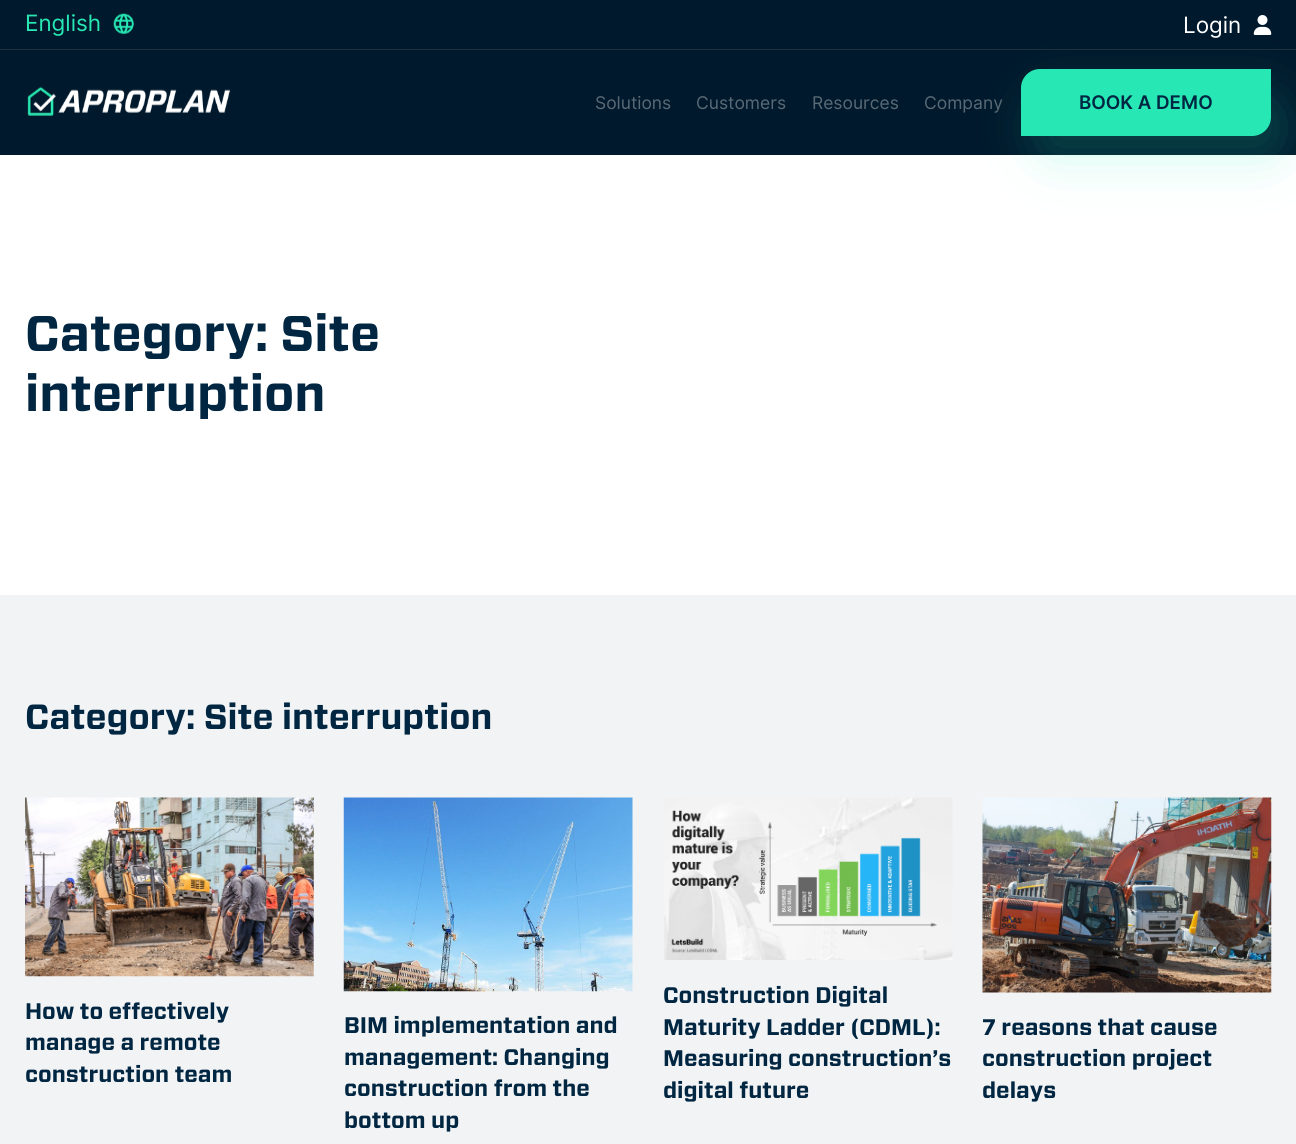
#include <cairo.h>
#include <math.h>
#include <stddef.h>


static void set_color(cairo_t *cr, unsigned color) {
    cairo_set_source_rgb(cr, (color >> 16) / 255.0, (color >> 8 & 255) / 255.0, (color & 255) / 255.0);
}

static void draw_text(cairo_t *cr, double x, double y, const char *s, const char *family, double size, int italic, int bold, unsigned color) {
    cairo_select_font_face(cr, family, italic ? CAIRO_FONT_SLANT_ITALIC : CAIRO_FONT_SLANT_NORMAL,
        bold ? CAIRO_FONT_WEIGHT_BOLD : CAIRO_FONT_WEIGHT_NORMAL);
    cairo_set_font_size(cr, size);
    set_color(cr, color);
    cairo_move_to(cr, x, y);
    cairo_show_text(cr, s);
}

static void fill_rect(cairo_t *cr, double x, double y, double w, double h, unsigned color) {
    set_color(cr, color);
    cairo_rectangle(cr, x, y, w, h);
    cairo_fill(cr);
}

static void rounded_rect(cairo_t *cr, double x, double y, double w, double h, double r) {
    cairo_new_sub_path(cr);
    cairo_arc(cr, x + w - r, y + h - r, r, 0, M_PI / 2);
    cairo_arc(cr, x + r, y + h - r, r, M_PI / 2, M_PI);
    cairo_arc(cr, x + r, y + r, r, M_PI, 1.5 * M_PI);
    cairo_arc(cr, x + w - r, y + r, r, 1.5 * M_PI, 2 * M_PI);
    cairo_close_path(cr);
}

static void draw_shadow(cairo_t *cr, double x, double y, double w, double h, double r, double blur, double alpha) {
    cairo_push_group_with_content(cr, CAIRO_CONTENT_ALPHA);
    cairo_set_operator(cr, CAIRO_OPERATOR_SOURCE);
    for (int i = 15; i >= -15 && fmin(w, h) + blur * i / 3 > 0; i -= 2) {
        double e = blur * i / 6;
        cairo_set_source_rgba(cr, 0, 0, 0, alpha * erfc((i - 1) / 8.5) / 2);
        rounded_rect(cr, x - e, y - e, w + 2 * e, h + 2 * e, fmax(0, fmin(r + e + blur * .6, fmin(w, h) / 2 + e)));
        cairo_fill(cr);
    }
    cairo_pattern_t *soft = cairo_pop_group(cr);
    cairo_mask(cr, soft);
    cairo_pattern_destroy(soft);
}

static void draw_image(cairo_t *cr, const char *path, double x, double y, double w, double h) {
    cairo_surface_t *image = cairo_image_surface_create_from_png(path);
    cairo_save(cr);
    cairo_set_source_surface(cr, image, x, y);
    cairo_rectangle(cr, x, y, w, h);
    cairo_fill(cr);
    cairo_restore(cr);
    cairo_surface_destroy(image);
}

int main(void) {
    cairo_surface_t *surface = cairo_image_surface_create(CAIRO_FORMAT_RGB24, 1296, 1144);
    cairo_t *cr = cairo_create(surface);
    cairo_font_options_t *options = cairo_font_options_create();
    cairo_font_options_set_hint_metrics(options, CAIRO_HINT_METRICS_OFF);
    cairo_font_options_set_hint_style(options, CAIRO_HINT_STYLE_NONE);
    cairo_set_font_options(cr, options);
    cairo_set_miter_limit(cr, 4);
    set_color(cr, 0xF2F3F5);
    cairo_paint(cr);
    fill_rect(cr, 0, 0, 1296, 155, 0x00192C);
    fill_rect(cr, 0, 155, 1296, 440, 0xFFFFFF);
    set_color(cr, 0x27E8B4);
    draw_shadow(cr, 1034, 94, 250, 67, 19, 25, 0.2);
    fill_rect(cr, 0, 49, 1296, 1, 0x1E303E);
    draw_text(cr, 25, 31, "English", "Inter", 22.5, 0, 0, 0x27E8B4);
    draw_image(cr, "assets/img1.png", 113, 13, 21, 21);
    draw_text(cr, 1183, 33, "Login", "Inter", 22.5, 0, 0, 0xFFFFFF);
    draw_image(cr, "assets/img2.png", 1253, 15, 19, 20);
    draw_image(cr, "assets/img3.png", 27, 86, 203, 30);
    draw_text(cr, 595, 109, "Solutions", "Inter", 17.5, 0, 0, 0x596A76);
    draw_text(cr, 696, 109, "Customers", "Inter", 17.5, 0, 0, 0x596A76);
    draw_text(cr, 812, 109, "Resources", "Inter", 17.5, 0, 0, 0x596A76);
    draw_text(cr, 924, 109, "Company", "Inter", 17.5, 0, 0, 0x596A76);
    set_color(cr, 0x27E8B4);
    cairo_new_path(cr);
    cairo_move_to(cr, 1040, 69);
    cairo_line_to(cr, 1271, 69);
    cairo_line_to(cr, 1271, 117);
    cairo_curve_to(cr, 1271, 127.5, 1262.5, 136, 1252, 136);
    cairo_line_to(cr, 1021, 136);
    cairo_line_to(cr, 1021, 88);
    cairo_curve_to(cr, 1021, 77.5, 1029.5, 69, 1040, 69);
    cairo_close_path(cr);
    cairo_fill(cr);
    draw_text(cr, 1079, 109, "BOOK A DEMO", "Inter SemiBold", 18.75, 0, 0, 0x002642);
    draw_text(cr, 25, 351, "Category: Site", "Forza", 50, 0, 1, 0x002642);
    draw_text(cr, 25, 411, "interruption", "Forza", 50, 0, 1, 0x002642);
    draw_text(cr, 25, 729, "Category: Site interruption", "Forza", 35, 0, 1, 0x002642);
    draw_image(cr, "assets/img4.png", 25, 797, 289, 180);
    draw_text(cr, 25, 1019, "How to effectively", "Forza", 22.5, 0, 1, 0x002642);
    draw_text(cr, 25, 1050, "manage a remote", "Forza", 22.5, 0, 1, 0x002642);
    draw_text(cr, 25, 1082, "construction team", "Forza", 22.5, 0, 1, 0x002642);
    draw_image(cr, "assets/img5.png", 343, 797, 290, 195);
    draw_text(cr, 344, 1033, "BIM implementation and", "Forza", 22.5, 0, 1, 0x002642);
    draw_text(cr, 344, 1065, "management: Changing", "Forza", 22.5, 0, 1, 0x002642);
    draw_text(cr, 344, 1096, "construction from the", "Forza", 22.5, 0, 1, 0x002642);
    draw_text(cr, 344, 1128, "bottom up", "Forza", 22.5, 0, 1, 0x002642);
    draw_image(cr, "assets/img6.png", 664, 797, 289, 163);
    draw_text(cr, 663, 1003, "Construction Digital", "Forza", 22.5, 0, 1, 0x002642);
    draw_text(cr, 663, 1035, "Maturity Ladder (CDML):", "Forza", 22.5, 0, 1, 0x002642);
    draw_text(cr, 663, 1066, "Measuring construction’s", "Forza", 22.5, 0, 1, 0x002642);
    draw_text(cr, 663, 1098, "digital future", "Forza", 22.5, 0, 1, 0x002642);
    draw_image(cr, "assets/img7.png", 982, 797, 290, 196);
    draw_text(cr, 982, 1035, "7 reasons that cause", "Forza", 22.5, 0, 1, 0x002642);
    draw_text(cr, 982, 1066, "construction project", "Forza", 22.5, 0, 1, 0x002642);
    draw_text(cr, 982, 1098, "delays", "Forza", 22.5, 0, 1, 0x002642);
    cairo_surface_write_to_png(surface, "output.png");
    cairo_font_options_destroy(options);
    cairo_destroy(cr);
    cairo_surface_destroy(surface);
    return 0;
}
